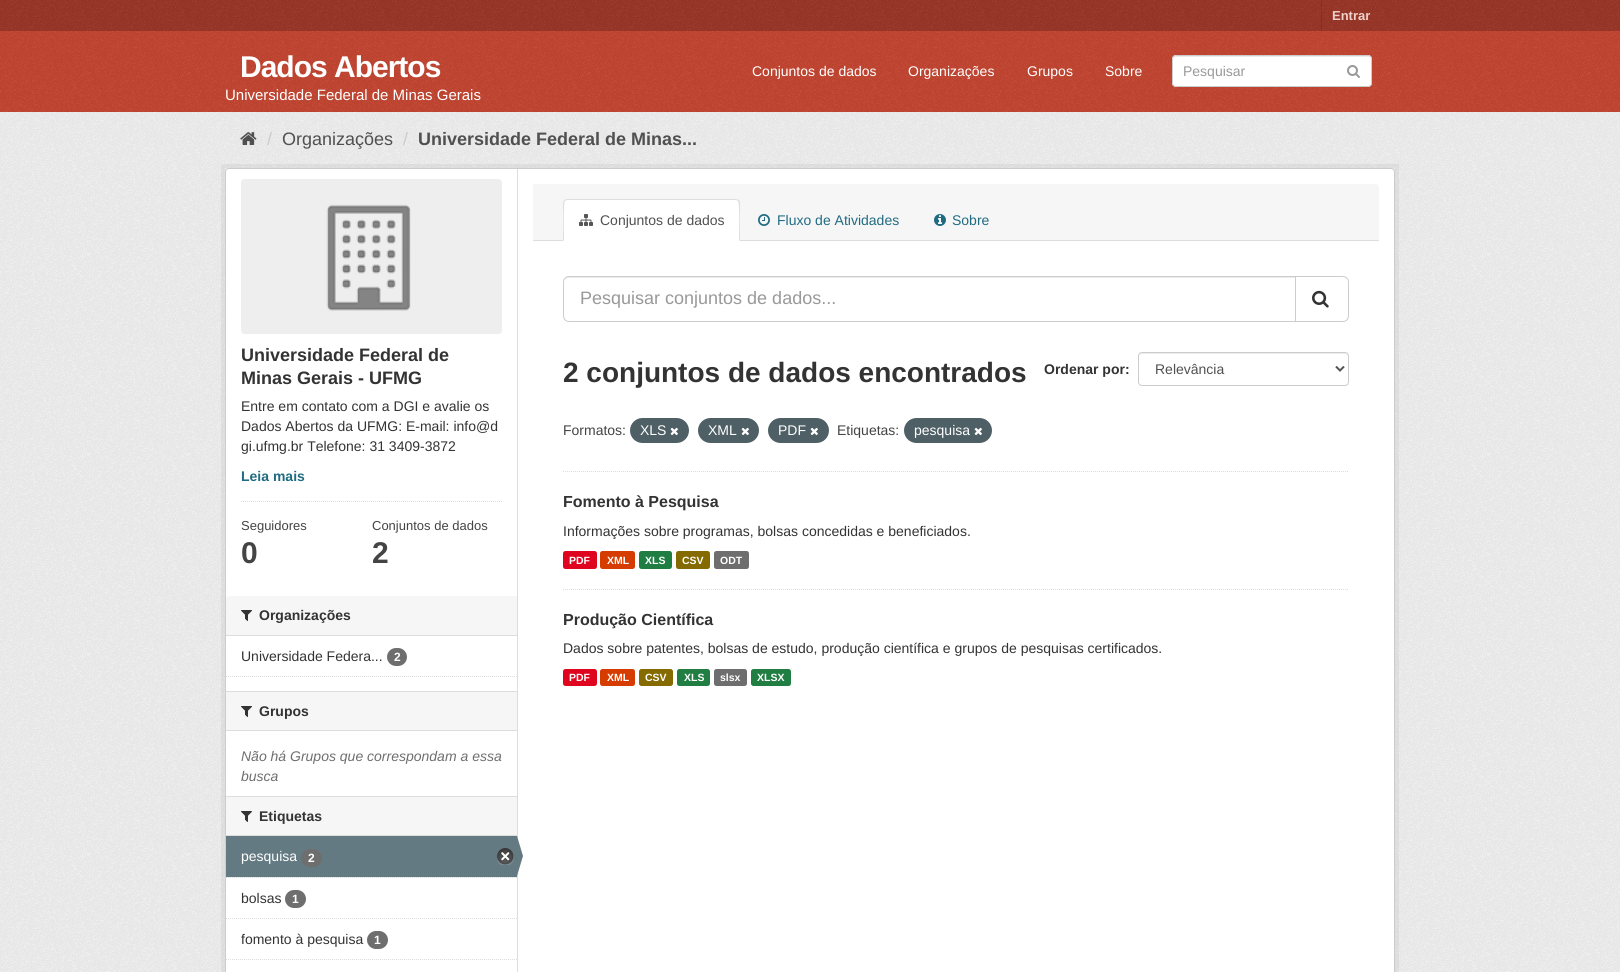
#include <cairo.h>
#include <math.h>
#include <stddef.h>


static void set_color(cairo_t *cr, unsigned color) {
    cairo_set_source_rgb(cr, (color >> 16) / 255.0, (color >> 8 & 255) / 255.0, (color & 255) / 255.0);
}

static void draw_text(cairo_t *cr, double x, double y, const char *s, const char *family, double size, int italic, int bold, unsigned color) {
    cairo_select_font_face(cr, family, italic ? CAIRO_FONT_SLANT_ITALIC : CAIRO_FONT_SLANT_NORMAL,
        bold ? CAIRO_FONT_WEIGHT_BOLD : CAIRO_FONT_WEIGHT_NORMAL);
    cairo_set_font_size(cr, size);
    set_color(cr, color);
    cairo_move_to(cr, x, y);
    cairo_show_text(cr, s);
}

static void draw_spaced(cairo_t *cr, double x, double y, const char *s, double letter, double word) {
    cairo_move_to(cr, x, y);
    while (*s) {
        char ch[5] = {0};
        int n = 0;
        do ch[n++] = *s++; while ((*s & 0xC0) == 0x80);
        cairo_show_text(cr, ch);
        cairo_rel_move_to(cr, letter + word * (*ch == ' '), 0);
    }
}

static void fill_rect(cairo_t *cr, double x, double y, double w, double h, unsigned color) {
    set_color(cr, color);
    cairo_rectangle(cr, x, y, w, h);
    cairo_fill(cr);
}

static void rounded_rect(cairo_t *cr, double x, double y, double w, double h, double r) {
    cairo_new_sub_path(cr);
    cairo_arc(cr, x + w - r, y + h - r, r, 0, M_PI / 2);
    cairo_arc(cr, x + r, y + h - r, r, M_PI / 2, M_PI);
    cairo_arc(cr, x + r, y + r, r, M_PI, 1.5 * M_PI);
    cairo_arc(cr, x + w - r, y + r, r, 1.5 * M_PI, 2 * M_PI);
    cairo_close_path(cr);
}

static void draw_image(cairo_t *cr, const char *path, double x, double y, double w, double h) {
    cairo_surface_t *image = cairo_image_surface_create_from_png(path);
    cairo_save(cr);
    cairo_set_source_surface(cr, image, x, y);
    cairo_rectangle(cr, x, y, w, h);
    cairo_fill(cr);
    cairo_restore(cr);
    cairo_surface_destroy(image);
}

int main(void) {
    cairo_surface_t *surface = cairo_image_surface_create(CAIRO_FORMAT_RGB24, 1620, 972);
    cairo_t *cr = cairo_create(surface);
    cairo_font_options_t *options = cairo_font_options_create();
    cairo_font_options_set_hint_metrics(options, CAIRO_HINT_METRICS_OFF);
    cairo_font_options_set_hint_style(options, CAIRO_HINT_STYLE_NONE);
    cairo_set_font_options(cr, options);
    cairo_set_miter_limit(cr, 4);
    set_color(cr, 0x983627);
    cairo_paint(cr);
    draw_image(cr, "assets/img1.png", 0, 0, 1620, 31);
    fill_rect(cr, 1321, 0, 1, 31, 0x842F22);
    draw_text(cr, 1332, 20, "Entrar", "Liberation Sans", 13, 0, 1, 0xF0D1CC);
    fill_rect(cr, 0, 31, 1620, 81, 0xC14531);
    draw_image(cr, "assets/img2.png", 0, 31, 1620, 81);
    cairo_set_font_size(cr, 30);
    set_color(cr, 0xFFFFFF);
    draw_spaced(cr, 240, 77, "Dados Abertos", -1, 0);
    draw_text(cr, 225, 100, "Universidade Federal de Minas Gerais", "Liberation Sans", 15, 0, 0, 0xFFFFFF);
    draw_text(cr, 752, 76, "Conjuntos de dados", "Liberation Sans", 14, 0, 0, 0xFFFFFF);
    draw_text(cr, 908, 76, "Organizações", "Liberation Sans", 14, 0, 0, 0xFFFFFF);
    draw_text(cr, 1027, 76, "Grupos", "Liberation Sans", 14, 0, 0, 0xFFFFFF);
    draw_text(cr, 1105, 76, "Sobre", "Liberation Sans", 14, 0, 0, 0xFFFFFF);
    rounded_rect(cr, 1172, 55, 200, 32, 4);
    cairo_fill(cr);
    set_color(cr, 0xECECEC);
    cairo_new_path(cr);
    cairo_move_to(cr, 1176, 57);
    cairo_line_to(cr, 1368, 57);
    cairo_curve_to(cr, 1370, 57, 1371, 58, 1371, 60);
    cairo_curve_to(cr, 1371, 58, 1370, 56, 1368, 56);
    cairo_line_to(cr, 1176, 56);
    cairo_curve_to(cr, 1174, 56, 1173, 58, 1173, 60);
    cairo_curve_to(cr, 1173, 58, 1174, 57, 1176, 57);
    cairo_close_path(cr);
    cairo_fill(cr);
    rounded_rect(cr, 1172.5, 55.5, 199, 31, 3.5);
    set_color(cr, 0xCCCCCC);
    cairo_set_line_width(cr, 1);
    cairo_stroke(cr);
    draw_text(cr, 1183, 76, "Pesquisar", "Liberation Sans", 14, 0, 0, 0x999999);
    draw_image(cr, "assets/img3.png", 1347, 65, 13, 13);
    fill_rect(cr, 0, 112, 1620, 860, 0xEEEEEE);
    draw_image(cr, "assets/img4.png", 0, 112, 1620, 860);
    draw_image(cr, "assets/img5.png", 240, 132, 17, 13);
    draw_text(cr, 267, 145, "/", "Liberation Sans", 18, 0, 0, 0xCCCCCC);
    draw_text(cr, 282, 145, "Organizações", "Liberation Sans", 18, 0, 0, 0x505050);
    draw_text(cr, 403, 145, "/", "Liberation Sans", 18, 0, 0, 0xCCCCCC);
    draw_text(cr, 418, 145, "Universidade Federal de Minas...", "Liberation Sans", 18, 0, 1, 0x505050);
    cairo_rectangle(cr, 223, 166, 1174, 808);
    cairo_set_source_rgba(cr, 0, 0, 0, 0.05);
    cairo_set_line_width(cr, 4);
    cairo_stroke(cr);
    set_color(cr, 0xFFFFFF);
    rounded_rect(cr, 225.5, 168.5, 1169, 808, 3.5);
    cairo_fill_preserve(cr);
    set_color(cr, 0xCCCCCC);
    cairo_set_line_width(cr, 1);
    cairo_stroke(cr);
    draw_image(cr, "assets/img6.png", 241, 179, 261, 155);
    draw_text(cr, 241, 361, "Universidade Federal de", "Liberation Sans", 18, 0, 1, 0x333333);
    draw_text(cr, 241, 384, "Minas Gerais - UFMG", "Liberation Sans", 18, 0, 1, 0x333333);
    draw_text(cr, 241, 411, "Entre em contato com a DGI e avalie os", "Liberation Sans", 14, 0, 0, 0x333333);
    draw_text(cr, 241, 431, "Dados Abertos da UFMG: E-mail: info@d", "Liberation Sans", 14, 0, 0, 0x333333);
    draw_text(cr, 241, 451, "gi.ufmg.br Telefone: 31 3409-3872", "Liberation Sans", 14, 0, 0, 0x333333);
    draw_text(cr, 241, 481, "Leia mais", "Liberation Sans", 14, 0, 1, 0x206B82);
    cairo_new_path(cr);
    cairo_move_to(cr, 241, 501.5);
    cairo_line_to(cr, 502, 501.5);
    set_color(cr, 0xDDDDDD);
    cairo_set_dash(cr, (double[]){1, 1}, 2, 0);
    cairo_stroke(cr);
    draw_text(cr, 241, 530, "Seguidores", "Liberation Sans", 13, 0, 0, 0x444444);
    draw_text(cr, 241, 563, "0", "Liberation Sans", 30, 0, 1, 0x444444);
    draw_text(cr, 372, 530, "Conjuntos de dados", "Liberation Sans", 13, 0, 0, 0x444444);
    draw_text(cr, 372, 563, "2", "Liberation Sans", 30, 0, 1, 0x444444);
    set_color(cr, 0xF6F6F6);
    cairo_new_path(cr);
    cairo_move_to(cr, 229, 596);
    cairo_line_to(cr, 517, 596);
    cairo_line_to(cr, 517, 636);
    cairo_line_to(cr, 226, 636);
    cairo_line_to(cr, 226, 599);
    cairo_curve_to(cr, 226, 597.5, 227.5, 596, 229, 596);
    cairo_close_path(cr);
    cairo_fill(cr);
    fill_rect(cr, 226, 635, 291, 1, 0xDDDDDD);
    draw_image(cr, "assets/img7.png", 241, 610, 11, 11);
    draw_text(cr, 259, 620, "Organizações", "Liberation Sans", 14, 0, 1, 0x333333);
    draw_text(cr, 241, 661, "Universidade Federa...", "Liberation Sans", 14, 0, 0, 0x333333);
    set_color(cr, 0x6E6E6E);
    rounded_rect(cr, 387, 648, 20, 18, 9);
    cairo_fill(cr);
    draw_text(cr, 394, 661, "2", "Liberation Sans", 12, 0, 1, 0xFFFFFF);
    cairo_new_path(cr);
    cairo_move_to(cr, 226, 676.5);
    cairo_line_to(cr, 517, 676.5);
    set_color(cr, 0xDDDDDD);
    cairo_stroke(cr);
    fill_rect(cr, 226, 692, 291, 38, 0xF6F6F6);
    fill_rect(cr, 226, 691, 291, 1, 0xDDDDDD);
    fill_rect(cr, 226, 730, 291, 1, 0xDDDDDD);
    draw_image(cr, "assets/img7.png", 241, 706, 11, 11);
    draw_text(cr, 259, 716, "Grupos", "Liberation Sans", 14, 0, 1, 0x333333);
    draw_text(cr, 241, 761, "Não há Grupos que correspondam a essa", "Liberation Sans", 14, 1, 0, 0x6E6E6E);
    draw_text(cr, 241, 781, "busca", "Liberation Sans", 14, 1, 0, 0x6E6E6E);
    fill_rect(cr, 226, 797, 291, 38, 0xF6F6F6);
    fill_rect(cr, 226, 796, 291, 1, 0xDDDDDD);
    fill_rect(cr, 226, 835, 291, 1, 0xDDDDDD);
    draw_image(cr, "assets/img7.png", 241, 811, 11, 11);
    draw_text(cr, 259, 821, "Etiquetas", "Liberation Sans", 14, 0, 1, 0x333333);
    fill_rect(cr, 227, 877, 289, 1, 0xF6F6F6);
    cairo_new_path(cr);
    cairo_move_to(cr, 226, 877.5);
    cairo_line_to(cr, 517, 877.5);
    set_color(cr, 0xDDDDDD);
    cairo_stroke(cr);
    fill_rect(cr, 226, 836, 291, 41, 0x647A82);
    draw_text(cr, 241, 861, "pesquisa", "Liberation Sans", 14, 0, 0, 0xFFFFFF);
    set_color(cr, 0x6E6E6E);
    rounded_rect(cr, 301, 849, 21, 18, 9);
    cairo_fill(cr);
    draw_text(cr, 308, 862, "2", "Liberation Sans", 12, 0, 1, 0xFFFFFF);
    draw_image(cr, "assets/img8.png", 497, 848, 17, 17);
    fill_rect(cr, 517, 169, 1, 803, 0xDDDDDD);
    set_color(cr, 0x647A82);
    cairo_new_path(cr);
    cairo_move_to(cr, 517, 876);
    cairo_line_to(cr, 517, 836);
    cairo_line_to(cr, 523, 856);
    cairo_close_path(cr);
    cairo_fill(cr);
    cairo_new_path(cr);
    cairo_move_to(cr, 226, 918.5);
    cairo_line_to(cr, 517, 918.5);
    set_color(cr, 0xDDDDDD);
    cairo_stroke(cr);
    draw_text(cr, 241, 903, "bolsas", "Liberation Sans", 14, 0, 0, 0x333333);
    set_color(cr, 0x6E6E6E);
    rounded_rect(cr, 285, 890, 21, 18, 9);
    cairo_fill(cr);
    draw_text(cr, 292, 903, "1", "Liberation Sans", 12, 0, 1, 0xFFFFFF);
    cairo_new_path(cr);
    cairo_move_to(cr, 226, 959.5);
    cairo_line_to(cr, 517, 959.5);
    set_color(cr, 0xDDDDDD);
    cairo_stroke(cr);
    draw_text(cr, 241, 944, "fomento à pesquisa", "Liberation Sans", 14, 0, 0, 0x333333);
    set_color(cr, 0x6E6E6E);
    rounded_rect(cr, 367, 931, 21, 18, 9);
    cairo_fill(cr);
    draw_text(cr, 374, 944, "1", "Liberation Sans", 12, 0, 1, 0xFFFFFF);
    set_color(cr, 0xF6F6F6);
    cairo_new_path(cr);
    cairo_move_to(cr, 533, 184);
    cairo_line_to(cr, 1376, 184);
    cairo_curve_to(cr, 1377.5, 184, 1379, 185.5, 1379, 187);
    cairo_line_to(cr, 1379, 241);
    cairo_line_to(cr, 533, 241);
    cairo_close_path(cr);
    cairo_fill(cr);
    fill_rect(cr, 533, 240, 846, 1, 0xDDDDDD);
    set_color(cr, 0xFFFFFF);
    cairo_new_path(cr);
    cairo_move_to(cr, 567, 199);
    cairo_line_to(cr, 736, 199);
    cairo_curve_to(cr, 738, 199, 740, 201, 740, 203);
    cairo_line_to(cr, 740, 241);
    cairo_line_to(cr, 563, 241);
    cairo_line_to(cr, 563, 203);
    cairo_curve_to(cr, 563, 201, 565, 199, 567, 199);
    cairo_close_path(cr);
    cairo_fill(cr);
    set_color(cr, 0xDDDDDD);
    cairo_new_path(cr);
    cairo_move_to(cr, 567, 199);
    cairo_line_to(cr, 564, 200);
    cairo_line_to(cr, 565, 201);
    cairo_line_to(cr, 567, 200);
    cairo_line_to(cr, 736, 200);
    cairo_line_to(cr, 738, 201);
    cairo_line_to(cr, 739, 200);
    cairo_line_to(cr, 736, 199);
    cairo_close_path(cr);
    cairo_fill(cr);
    cairo_new_path(cr);
    cairo_move_to(cr, 740, 241);
    cairo_line_to(cr, 740, 203);
    cairo_curve_to(cr, 740, 202, 740, 201, 739, 200);
    cairo_line_to(cr, 738, 201);
    cairo_curve_to(cr, 740, 203, 739, 235, 739, 240);
    cairo_close_path(cr);
    cairo_fill(cr);
    cairo_new_path(cr);
    cairo_move_to(cr, 563, 241);
    cairo_line_to(cr, 564, 240);
    cairo_curve_to(cr, 564, 235, 563, 203, 565, 201);
    cairo_line_to(cr, 564, 200);
    cairo_line_to(cr, 563, 203);
    cairo_close_path(cr);
    cairo_fill(cr);
    draw_image(cr, "assets/img9.png", 579, 214, 14, 12);
    draw_text(cr, 600, 225, "Conjuntos de dados", "Liberation Sans", 14, 0, 0, 0x505050);
    draw_image(cr, "assets/img10.png", 758, 214, 12, 12);
    draw_text(cr, 777, 225, "Fluxo de Atividades", "Liberation Sans", 14, 0, 0, 0x206B82);
    draw_image(cr, "assets/img11.png", 934, 214, 12, 12);
    draw_text(cr, 952, 225, "Sobre", "Liberation Sans", 14, 0, 0, 0x206B82);
    cairo_new_path(cr);
    cairo_move_to(cr, 563, 471.5);
    cairo_line_to(cr, 1349, 471.5);
    set_color(cr, 0xDDDDDD);
    cairo_stroke(cr);
    set_color(cr, 0xECECEC);
    cairo_new_path(cr);
    cairo_move_to(cr, 569, 278);
    cairo_line_to(cr, 1295, 278);
    cairo_line_to(cr, 1295, 277);
    cairo_line_to(cr, 569, 277);
    cairo_curve_to(cr, 566, 277, 564, 280, 564, 283);
    cairo_curve_to(cr, 564, 280, 566, 278, 569, 278);
    cairo_close_path(cr);
    cairo_fill(cr);
    cairo_new_path(cr);
    cairo_move_to(cr, 569, 276.5);
    cairo_line_to(cr, 1295.5, 276.5);
    cairo_line_to(cr, 1295.5, 321.5);
    cairo_line_to(cr, 569, 321.5);
    cairo_curve_to(cr, 566, 321.5, 563.5, 319, 563.5, 316);
    cairo_line_to(cr, 563.5, 282);
    cairo_curve_to(cr, 563.5, 279, 566, 276.5, 569, 276.5);
    cairo_close_path(cr);
    set_color(cr, 0xCCCCCC);
    cairo_set_dash(cr, NULL, 0, 0);
    cairo_stroke(cr);
    draw_text(cr, 580, 304, "Pesquisar conjuntos de dados...", "Liberation Sans", 18, 0, 0, 0x999999);
    set_color(cr, 0xFFFFFF);
    cairo_new_path(cr);
    cairo_move_to(cr, 1295.5, 276.5);
    cairo_line_to(cr, 1343, 276.5);
    cairo_curve_to(cr, 1346, 276.5, 1348.5, 279, 1348.5, 282);
    cairo_line_to(cr, 1348.5, 316);
    cairo_curve_to(cr, 1348.5, 319, 1346, 321.5, 1343, 321.5);
    cairo_line_to(cr, 1295.5, 321.5);
    cairo_close_path(cr);
    cairo_fill_preserve(cr);
    set_color(cr, 0xCCCCCC);
    cairo_stroke(cr);
    draw_image(cr, "assets/img12.png", 1312, 290, 17, 18);
    draw_text(cr, 563, 382, "2 conjuntos de dados encontrados", "Liberation Sans", 28, 0, 1, 0x333333);
    draw_text(cr, 1044, 374, "Ordenar por:", "Liberation Sans", 14, 0, 1, 0x333333);
    set_color(cr, 0xECECEC);
    cairo_new_path(cr);
    cairo_move_to(cr, 1142, 354);
    cairo_line_to(cr, 1345, 354);
    cairo_curve_to(cr, 1347, 354, 1348, 355, 1348, 357);
    cairo_line_to(cr, 1348, 356);
    cairo_curve_to(cr, 1348, 354, 1347, 353, 1345, 353);
    cairo_line_to(cr, 1142, 353);
    cairo_curve_to(cr, 1140, 353, 1139, 354, 1139, 356);
    cairo_line_to(cr, 1139, 357);
    cairo_curve_to(cr, 1139, 355, 1140, 354, 1142, 354);
    cairo_close_path(cr);
    cairo_fill(cr);
    rounded_rect(cr, 1138.5, 352.5, 210, 33, 3.5);
    set_color(cr, 0xCCCCCC);
    cairo_stroke(cr);
    cairo_new_path(cr);
    cairo_move_to(cr, 1336, 366.5);
    cairo_line_to(cr, 1340, 370.5);
    cairo_line_to(cr, 1344, 366.5);
    set_color(cr, 0x555555);
    cairo_set_line_width(cr, 2);
    cairo_stroke(cr);
    draw_text(cr, 1155, 374, "Relevância", "Liberation Sans", 14, 0, 0, 0x505050);
    draw_text(cr, 563, 435, "Formatos:", "Liberation Sans", 14, 0, 0, 0x444444);
    set_color(cr, 0x4E5F65);
    rounded_rect(cr, 630, 418, 59, 25, 12.5);
    cairo_fill(cr);
    draw_text(cr, 640, 435, "XLS", "Liberation Sans", 14, 0, 0, 0xFFFFFF);
    draw_image(cr, "assets/img13.png", 670, 427, 8, 9);
    set_color(cr, 0x4E5F65);
    rounded_rect(cr, 698, 418, 61, 25, 12.5);
    cairo_fill(cr);
    draw_text(cr, 708, 435, "XML", "Liberation Sans", 14, 0, 0, 0xFFFFFF);
    draw_image(cr, "assets/img13.png", 741, 427, 8, 9);
    set_color(cr, 0x4E5F65);
    rounded_rect(cr, 768, 418, 61, 25, 12.5);
    cairo_fill(cr);
    draw_text(cr, 778, 435, "PDF", "Liberation Sans", 14, 0, 0, 0xFFFFFF);
    draw_image(cr, "assets/img13.png", 810, 427, 8, 9);
    draw_text(cr, 837, 435, "Etiquetas:", "Liberation Sans", 14, 0, 0, 0x444444);
    set_color(cr, 0x4E5F65);
    rounded_rect(cr, 904, 418, 88, 25, 12.5);
    cairo_fill(cr);
    draw_text(cr, 914, 435, "pesquisa", "Liberation Sans", 14, 0, 0, 0xFFFFFF);
    draw_image(cr, "assets/img13.png", 974, 427, 8, 9);
    cairo_new_path(cr);
    cairo_move_to(cr, 563, 589.5);
    cairo_line_to(cr, 1349, 589.5);
    set_color(cr, 0xDDDDDD);
    cairo_set_line_width(cr, 1);
    cairo_set_dash(cr, (double[]){1, 1}, 2, 0);
    cairo_stroke(cr);
    draw_text(cr, 563, 507, "Fomento à Pesquisa", "Liberation Sans", 16, 0, 1, 0x333333);
    draw_text(cr, 563, 536, "Informações sobre programas, bolsas concedidas e beneficiados.", "Liberation Sans", 14, 0, 0, 0x333333);
    set_color(cr, 0xE0051E);
    rounded_rect(cr, 563, 551, 34, 18, 2.5);
    cairo_fill(cr);
    draw_text(cr, 569, 564, "PDF", "Liberation Sans", 10.5, 0, 1, 0xFFFFFF);
    set_color(cr, 0xD63B00);
    rounded_rect(cr, 600, 551, 35, 18, 2.5);
    cairo_fill(cr);
    draw_text(cr, 607, 564, "XML", "Liberation Sans", 10.5, 0, 1, 0xFFFFFF);
    set_color(cr, 0x207E42);
    rounded_rect(cr, 639, 551, 33, 18, 2.5);
    cairo_fill(cr);
    draw_text(cr, 645, 564, "XLS", "Liberation Sans", 10.5, 0, 1, 0xFFFFFF);
    set_color(cr, 0x856A00);
    rounded_rect(cr, 676, 551, 34, 18, 2.5);
    cairo_fill(cr);
    draw_text(cr, 682, 564, "CSV", "Liberation Sans", 10.5, 0, 1, 0xFFFFFF);
    set_color(cr, 0x6E6E6E);
    rounded_rect(cr, 714, 551, 35, 18, 2.5);
    cairo_fill(cr);
    draw_text(cr, 720, 564, "ODT", "Liberation Sans", 10.5, 0, 1, 0xFFFFFF);
    draw_text(cr, 563, 625, "Produção Científica", "Liberation Sans", 16, 0, 1, 0x333333);
    draw_text(cr, 563, 653, "Dados sobre patentes, bolsas de estudo, produção científica e grupos de pesquisas certificados.", "Liberation Sans", 14, 0, 0, 0x333333);
    set_color(cr, 0xE0051E);
    rounded_rect(cr, 563, 669, 34, 17, 2.5);
    cairo_fill(cr);
    draw_text(cr, 569, 681, "PDF", "Liberation Sans", 10.5, 0, 1, 0xFFFFFF);
    set_color(cr, 0xD63B00);
    rounded_rect(cr, 600, 669, 35, 17, 2.5);
    cairo_fill(cr);
    draw_text(cr, 607, 681, "XML", "Liberation Sans", 10.5, 0, 1, 0xFFFFFF);
    set_color(cr, 0x856A00);
    rounded_rect(cr, 639, 669, 34, 17, 2.5);
    cairo_fill(cr);
    draw_text(cr, 645, 681, "CSV", "Liberation Sans", 10.5, 0, 1, 0xFFFFFF);
    set_color(cr, 0x207E42);
    rounded_rect(cr, 677, 669, 33, 17, 2.5);
    cairo_fill(cr);
    draw_text(cr, 684, 681, "XLS", "Liberation Sans", 10.5, 0, 1, 0xFFFFFF);
    set_color(cr, 0x6E6E6E);
    rounded_rect(cr, 714, 669, 33, 17, 2.5);
    cairo_fill(cr);
    draw_text(cr, 720, 681, "slsx", "Liberation Sans", 10.5, 0, 1, 0xFFFFFF);
    set_color(cr, 0x207E42);
    rounded_rect(cr, 751, 669, 40, 17, 2.5);
    cairo_fill(cr);
    draw_text(cr, 757, 681, "XLSX", "Liberation Sans", 10.5, 0, 1, 0xFFFFFF);
    cairo_surface_write_to_png(surface, "output.png");
    cairo_font_options_destroy(options);
    cairo_destroy(cr);
    cairo_surface_destroy(surface);
    return 0;
}
